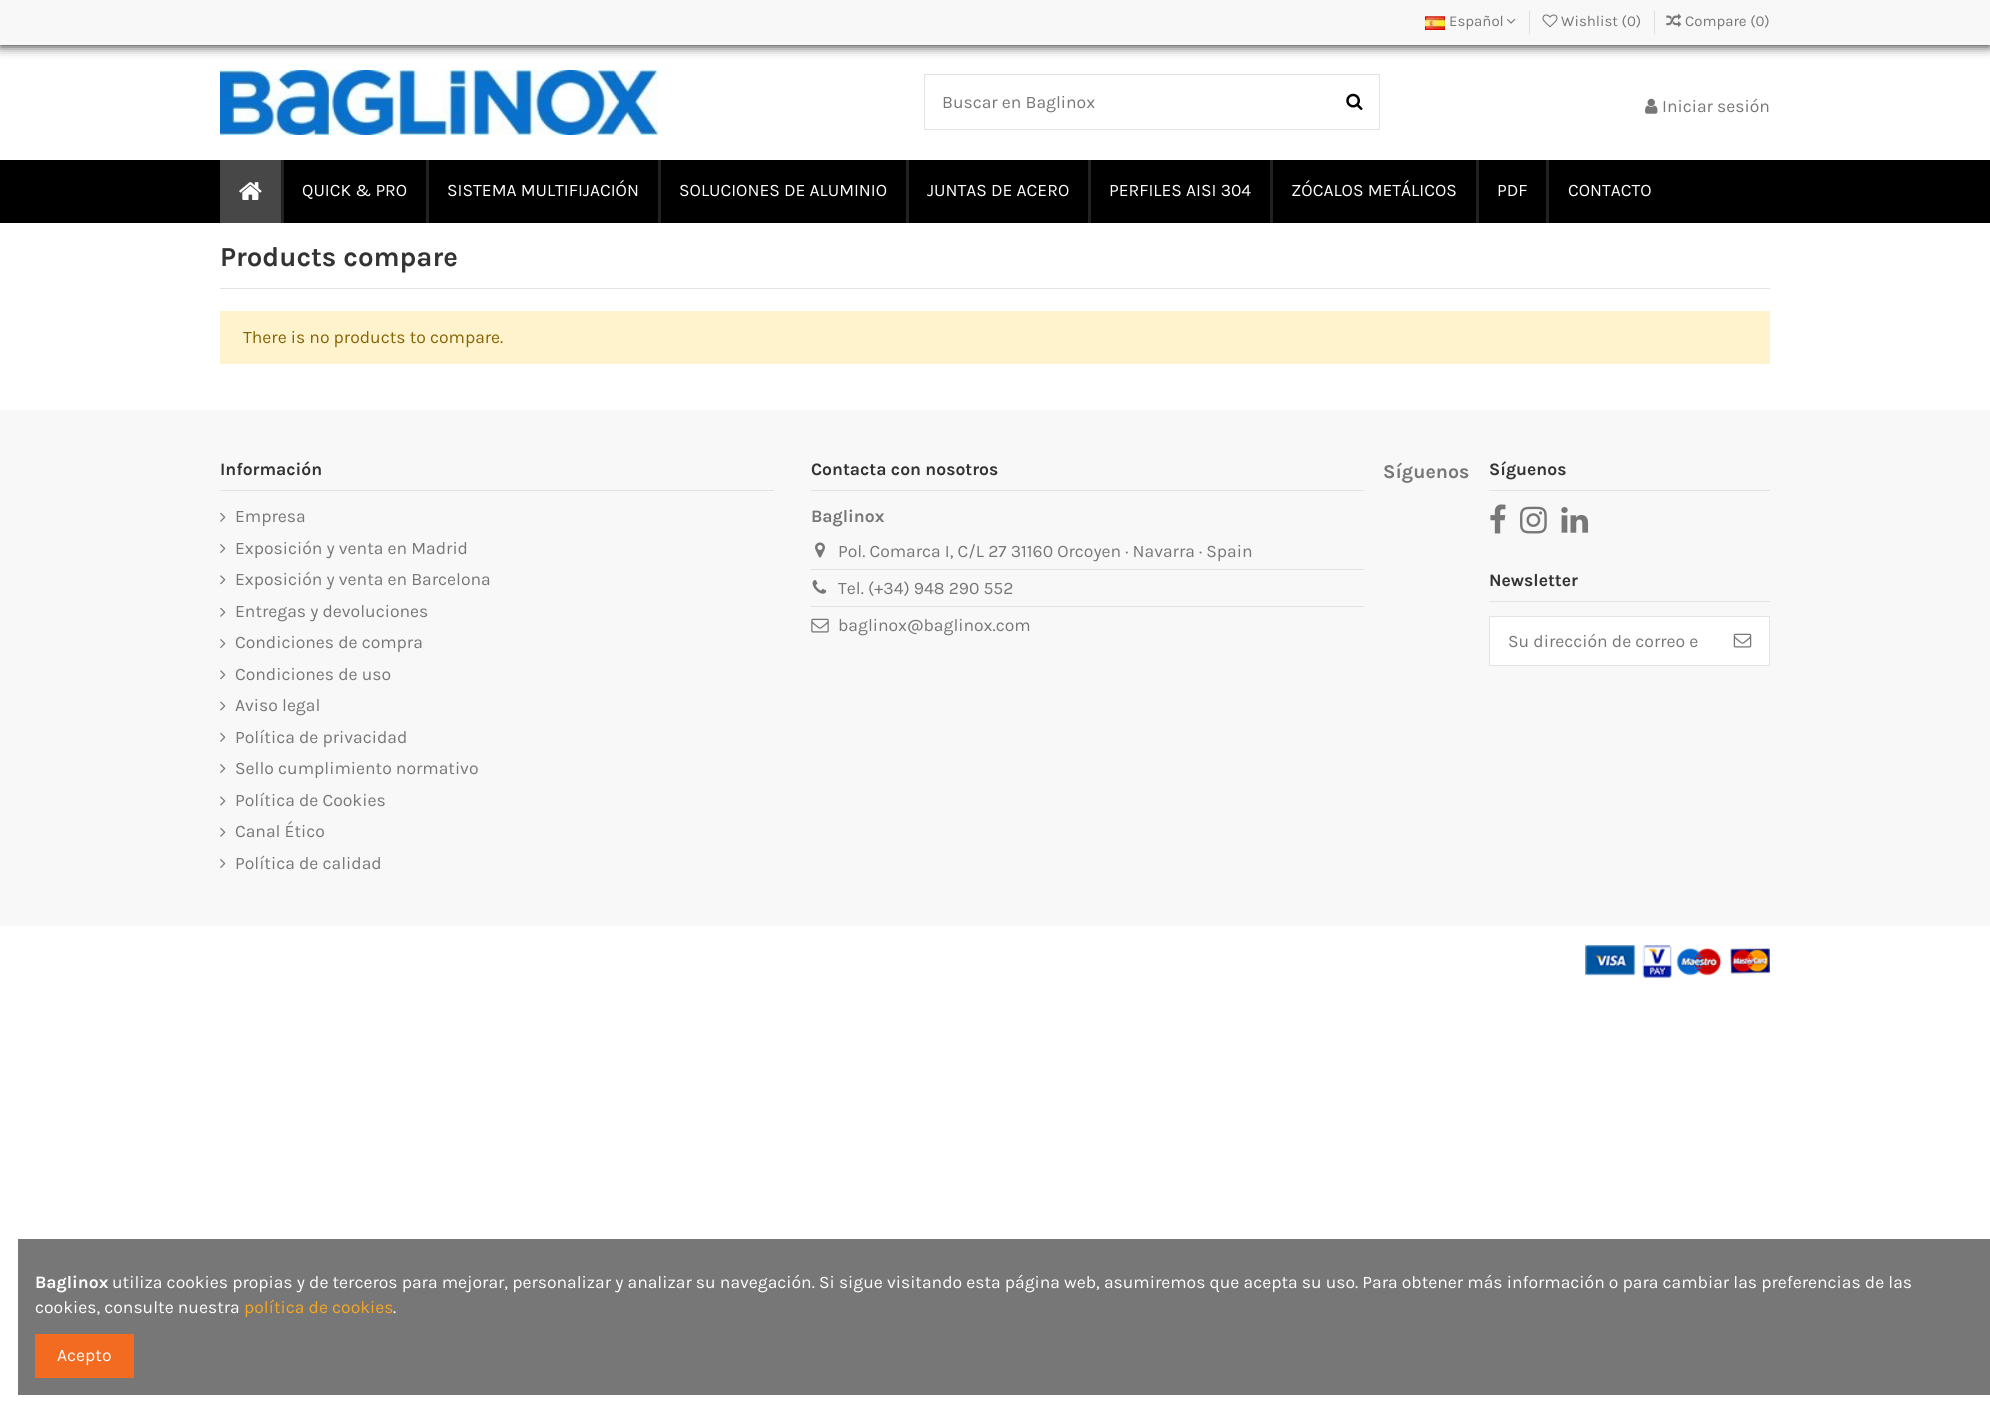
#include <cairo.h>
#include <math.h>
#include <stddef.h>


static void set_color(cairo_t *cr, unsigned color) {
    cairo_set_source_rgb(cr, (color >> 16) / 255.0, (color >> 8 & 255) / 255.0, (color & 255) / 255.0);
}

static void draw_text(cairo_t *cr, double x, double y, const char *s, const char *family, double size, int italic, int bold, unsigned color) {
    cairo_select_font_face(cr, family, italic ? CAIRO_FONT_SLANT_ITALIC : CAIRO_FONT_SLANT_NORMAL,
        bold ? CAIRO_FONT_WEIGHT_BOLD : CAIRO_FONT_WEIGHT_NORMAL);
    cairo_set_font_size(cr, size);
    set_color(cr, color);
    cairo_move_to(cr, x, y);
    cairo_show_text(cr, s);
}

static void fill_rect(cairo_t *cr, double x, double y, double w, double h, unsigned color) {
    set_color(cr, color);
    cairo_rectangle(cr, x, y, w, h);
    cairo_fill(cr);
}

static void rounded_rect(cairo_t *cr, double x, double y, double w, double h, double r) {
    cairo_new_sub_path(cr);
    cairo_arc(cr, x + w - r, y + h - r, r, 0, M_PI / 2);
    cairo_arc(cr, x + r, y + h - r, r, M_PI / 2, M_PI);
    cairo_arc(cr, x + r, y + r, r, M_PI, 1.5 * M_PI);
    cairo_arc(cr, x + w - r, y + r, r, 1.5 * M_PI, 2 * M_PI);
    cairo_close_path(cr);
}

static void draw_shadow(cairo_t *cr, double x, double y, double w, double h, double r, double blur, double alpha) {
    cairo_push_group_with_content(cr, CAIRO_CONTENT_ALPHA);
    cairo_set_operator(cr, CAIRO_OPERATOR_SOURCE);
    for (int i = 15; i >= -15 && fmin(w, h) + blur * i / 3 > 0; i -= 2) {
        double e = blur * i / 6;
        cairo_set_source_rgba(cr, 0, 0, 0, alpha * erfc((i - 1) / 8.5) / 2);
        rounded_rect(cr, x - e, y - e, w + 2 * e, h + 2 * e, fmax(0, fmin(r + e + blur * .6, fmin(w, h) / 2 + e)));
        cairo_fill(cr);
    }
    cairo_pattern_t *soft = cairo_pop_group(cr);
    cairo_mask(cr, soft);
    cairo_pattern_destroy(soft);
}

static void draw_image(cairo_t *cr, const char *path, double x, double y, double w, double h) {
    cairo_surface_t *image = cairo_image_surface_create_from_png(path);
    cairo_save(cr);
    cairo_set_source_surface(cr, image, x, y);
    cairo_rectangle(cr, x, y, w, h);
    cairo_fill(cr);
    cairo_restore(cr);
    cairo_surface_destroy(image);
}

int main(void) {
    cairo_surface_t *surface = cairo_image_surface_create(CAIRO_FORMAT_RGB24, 1990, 1412);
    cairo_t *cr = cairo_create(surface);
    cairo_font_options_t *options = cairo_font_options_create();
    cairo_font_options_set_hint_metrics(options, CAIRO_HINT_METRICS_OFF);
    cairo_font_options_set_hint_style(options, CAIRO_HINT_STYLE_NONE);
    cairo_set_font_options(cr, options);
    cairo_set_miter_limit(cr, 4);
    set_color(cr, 0xFFFFFF);
    cairo_paint(cr);
    set_color(cr, 0x000000);
    draw_shadow(cr, 0, 0, 1990, 45, 0, 6, 1);
    fill_rect(cr, 0, 0, 1990, 45, 0xF8F8F8);
    draw_image(cr, "assets/img1.png", 1425, 16, 20, 14);
    draw_text(cr, 1449, 26, "Español", "Karla", 15, 0, 0, 0x777777);
    draw_image(cr, "assets/img2.png", 1507, 18, 9, 6);
    fill_rect(cr, 1529, 11, 1, 23, 0xDEDEDE);
    draw_image(cr, "assets/img3.png", 1542, 14, 16, 14);
    draw_text(cr, 1561, 26, "Wishlist (0)", "Karla", 15, 0, 0, 0x777777);
    fill_rect(cr, 1654, 11, 1, 23, 0xDEDEDE);
    draw_image(cr, "assets/img4.png", 1666, 13, 16, 14);
    draw_text(cr, 1685, 26, "Compare (0)", "Karla", 15, 0, 0, 0x777777);
    draw_image(cr, "assets/img5.png", 220, 70, 438, 65);
    cairo_rectangle(cr, 924.5, 74.5, 455, 55);
    set_color(cr, 0xE3E3E3);
    cairo_set_line_width(cr, 1);
    cairo_stroke(cr);
    draw_text(cr, 942, 108, "Buscar en Baglinox", "Karla", 17.5, 0, 0, 0x777777);
    draw_image(cr, "assets/img6.png", 1346, 93, 17, 17);
    draw_image(cr, "assets/img7.png", 1645, 98, 13, 16);
    draw_text(cr, 1662, 112, "Iniciar sesión", "Karla", 17.5, 0, 0, 0x777777);
    fill_rect(cr, 0, 160, 1990, 63, 0x000000);
    fill_rect(cr, 220, 160, 61, 63, 0x474747);
    draw_image(cr, "assets/img8.png", 239, 182, 23, 18);
    fill_rect(cr, 281, 160, 3, 63, 0x212121);
    draw_text(cr, 302, 196, "QUICK & PRO", "Karla", 17.5, 0, 0, 0xFFFFFF);
    fill_rect(cr, 426, 160, 3, 63, 0x212121);
    draw_text(cr, 447, 196, "SISTEMA MULTIFIJACIÓN", "Karla", 17.5, 0, 0, 0xFFFFFF);
    fill_rect(cr, 658, 160, 3, 63, 0x212121);
    draw_text(cr, 679, 196, "SOLUCIONES DE ALUMINIO", "Karla", 17.5, 0, 0, 0xFFFFFF);
    fill_rect(cr, 906, 160, 3, 63, 0x212121);
    draw_text(cr, 927, 196, "JUNTAS DE ACERO", "Karla", 17.5, 0, 0, 0xFFFFFF);
    fill_rect(cr, 1088, 160, 3, 63, 0x212121);
    draw_text(cr, 1109, 196, "PERFILES AISI 304", "Karla", 17.5, 0, 0, 0xFFFFFF);
    fill_rect(cr, 1270, 160, 3, 63, 0x212121);
    draw_text(cr, 1291, 196, "ZÓCALOS METÁLICOS", "Karla", 17.5, 0, 0, 0xFFFFFF);
    fill_rect(cr, 1476, 160, 3, 63, 0x212121);
    draw_text(cr, 1497, 196, "PDF", "Karla", 17.5, 0, 0, 0xFFFFFF);
    fill_rect(cr, 1546, 160, 3, 63, 0x212121);
    draw_text(cr, 1568, 196, "CONTACTO", "Karla", 17.5, 0, 0, 0xFFFFFF);
    fill_rect(cr, 220, 288, 1550, 1, 0xE3E3E3);
    draw_text(cr, 220, 266, "Products compare", "Karla", 27.5, 0, 1, 0x333333);
    fill_rect(cr, 220, 311, 1550, 53, 0xFFF3CD);
    draw_text(cr, 243, 343, "There is no products to compare.", "Karla", 17.5, 0, 0, 0x856404);
    fill_rect(cr, 0, 410, 1990, 516, 0xF8F8F8);
    fill_rect(cr, 220, 490, 554, 1, 0xE3E3E3);
    draw_text(cr, 220, 475, "Información", "Karla", 17.5, 0, 1, 0x333333);
    draw_image(cr, "assets/img9.png", 220, 512, 6, 10);
    draw_text(cr, 235, 522, "Empresa", "Karla", 17.5, 0, 0, 0x777777);
    draw_image(cr, "assets/img10.png", 220, 544, 6, 9);
    draw_text(cr, 235, 554, "Exposición y venta en Madrid", "Karla", 17.5, 0, 0, 0x777777);
    draw_image(cr, "assets/img11.png", 220, 575, 6, 10);
    draw_text(cr, 235, 585, "Exposición y venta en Barcelona", "Karla", 17.5, 0, 0, 0x777777);
    draw_image(cr, "assets/img9.png", 220, 607, 6, 10);
    draw_text(cr, 235, 617, "Entregas y devoluciones", "Karla", 17.5, 0, 0, 0x777777);
    draw_image(cr, "assets/img10.png", 220, 639, 6, 9);
    draw_text(cr, 235, 648, "Condiciones de compra", "Karla", 17.5, 0, 0, 0x777777);
    draw_image(cr, "assets/img11.png", 220, 670, 6, 10);
    draw_text(cr, 235, 680, "Condiciones de uso", "Karla", 17.5, 0, 0, 0x777777);
    draw_image(cr, "assets/img12.png", 220, 701, 6, 10);
    draw_text(cr, 235, 711, "Aviso legal", "Karla", 17.5, 0, 0, 0x777777);
    draw_image(cr, "assets/img9.png", 220, 732, 6, 10);
    draw_text(cr, 235, 743, "Política de privacidad", "Karla", 17.5, 0, 0, 0x777777);
    draw_image(cr, "assets/img10.png", 220, 764, 6, 9);
    draw_text(cr, 235, 774, "Sello cumplimiento normativo", "Karla", 17.5, 0, 0, 0x777777);
    draw_image(cr, "assets/img12.png", 220, 796, 6, 10);
    draw_text(cr, 235, 806, "Política de Cookies", "Karla", 17.5, 0, 0, 0x777777);
    draw_image(cr, "assets/img9.png", 220, 827, 6, 10);
    draw_text(cr, 235, 837, "Canal Ético", "Karla", 17.5, 0, 0, 0x777777);
    draw_image(cr, "assets/img10.png", 220, 859, 6, 9);
    draw_text(cr, 235, 869, "Política de calidad", "Karla", 17.5, 0, 0, 0x777777);
    fill_rect(cr, 811, 490, 553, 1, 0xE3E3E3);
    draw_text(cr, 811, 475, "Contacta con nosotros", "Karla", 17.5, 0, 1, 0x333333);
    draw_text(cr, 811, 522, "Baglinox", "Karla", 17.5, 0, 1, 0x777777);
    draw_image(cr, "assets/img13.png", 815, 542, 10, 16);
    draw_text(cr, 838, 557, "Pol. Comarca I, C/L 27 31160 Orcoyen · Navarra · Spain", "Karla", 17.5, 0, 0, 0x777777);
    fill_rect(cr, 811, 569, 553, 1, 0xE2E2E2);
    draw_image(cr, "assets/img14.png", 812, 580, 15, 14);
    draw_text(cr, 838, 594, "Tel. (+34) 948 290 552", "Karla", 17.5, 0, 0, 0x777777);
    fill_rect(cr, 811, 606, 553, 1, 0xE2E2E2);
    draw_image(cr, "assets/img15.png", 811, 618, 18, 15);
    draw_text(cr, 838, 631, "baglinox@baglinox.com", "Karla", 17.5, 0, 0, 0x777777);
    draw_text(cr, 1383, 478, "Síguenos", "Karla", 19.5, 0, 1, 0x777777);
    fill_rect(cr, 1489, 490, 281, 1, 0xE3E3E3);
    draw_text(cr, 1489, 475, "Síguenos", "Karla", 17.5, 0, 1, 0x333333);
    draw_image(cr, "assets/img16.png", 1490, 504, 16, 30);
    draw_image(cr, "assets/img17.png", 1520, 506, 27, 28);
    draw_image(cr, "assets/img18.png", 1561, 507, 28, 26);
    fill_rect(cr, 1489, 601, 281, 1, 0xE3E3E3);
    draw_text(cr, 1489, 586, "Newsletter", "Karla", 17.5, 0, 1, 0x333333);
    set_color(cr, 0xFFFFFF);
    cairo_rectangle(cr, 1489.5, 616.5, 280, 49);
    cairo_fill_preserve(cr);
    set_color(cr, 0xE3E3E3);
    cairo_stroke(cr);
    draw_text(cr, 1508, 647, "Su dirección de correo e", "Karla", 17.5, 0, 0, 0x777777);
    draw_image(cr, "assets/img19.png", 1733, 633, 19, 15);
    draw_image(cr, "assets/img20.png", 1585, 945, 185, 33);
    fill_rect(cr, 18, 1239, 1972, 156, 0x777777);
    draw_text(cr, 35, 1288, "Baglinox", "Karla", 17.5, 0, 1, 0xFFFFFF);
    draw_text(cr, 112, 1288, "utiliza cookies propias y de terceros para mejorar, personalizar y analizar su navegación. Si sigue visitando esta página web, asumiremos que acepta su uso. Para obtener más información o para cambiar las preferencias de las", "Karla", 17.5, 0, 0, 0xFFFFFF);
    draw_text(cr, 35, 1313, "cookies, consulte nuestra", "Karla", 17.5, 0, 0, 0xFFFFFF);
    draw_text(cr, 244, 1313, "política de cookies", "Karla", 17.5, 0, 0, 0xF5A623);
    draw_text(cr, 393, 1313, ".", "Karla", 17.5, 0, 0, 0xFFFFFF);
    fill_rect(cr, 35, 1334, 99, 44, 0xF36B21);
    draw_text(cr, 57, 1361, "Acepto", "Karla", 17.5, 0, 0, 0xFFFFFF);
    cairo_surface_write_to_png(surface, "output.png");
    cairo_font_options_destroy(options);
    cairo_destroy(cr);
    cairo_surface_destroy(surface);
    return 0;
}
